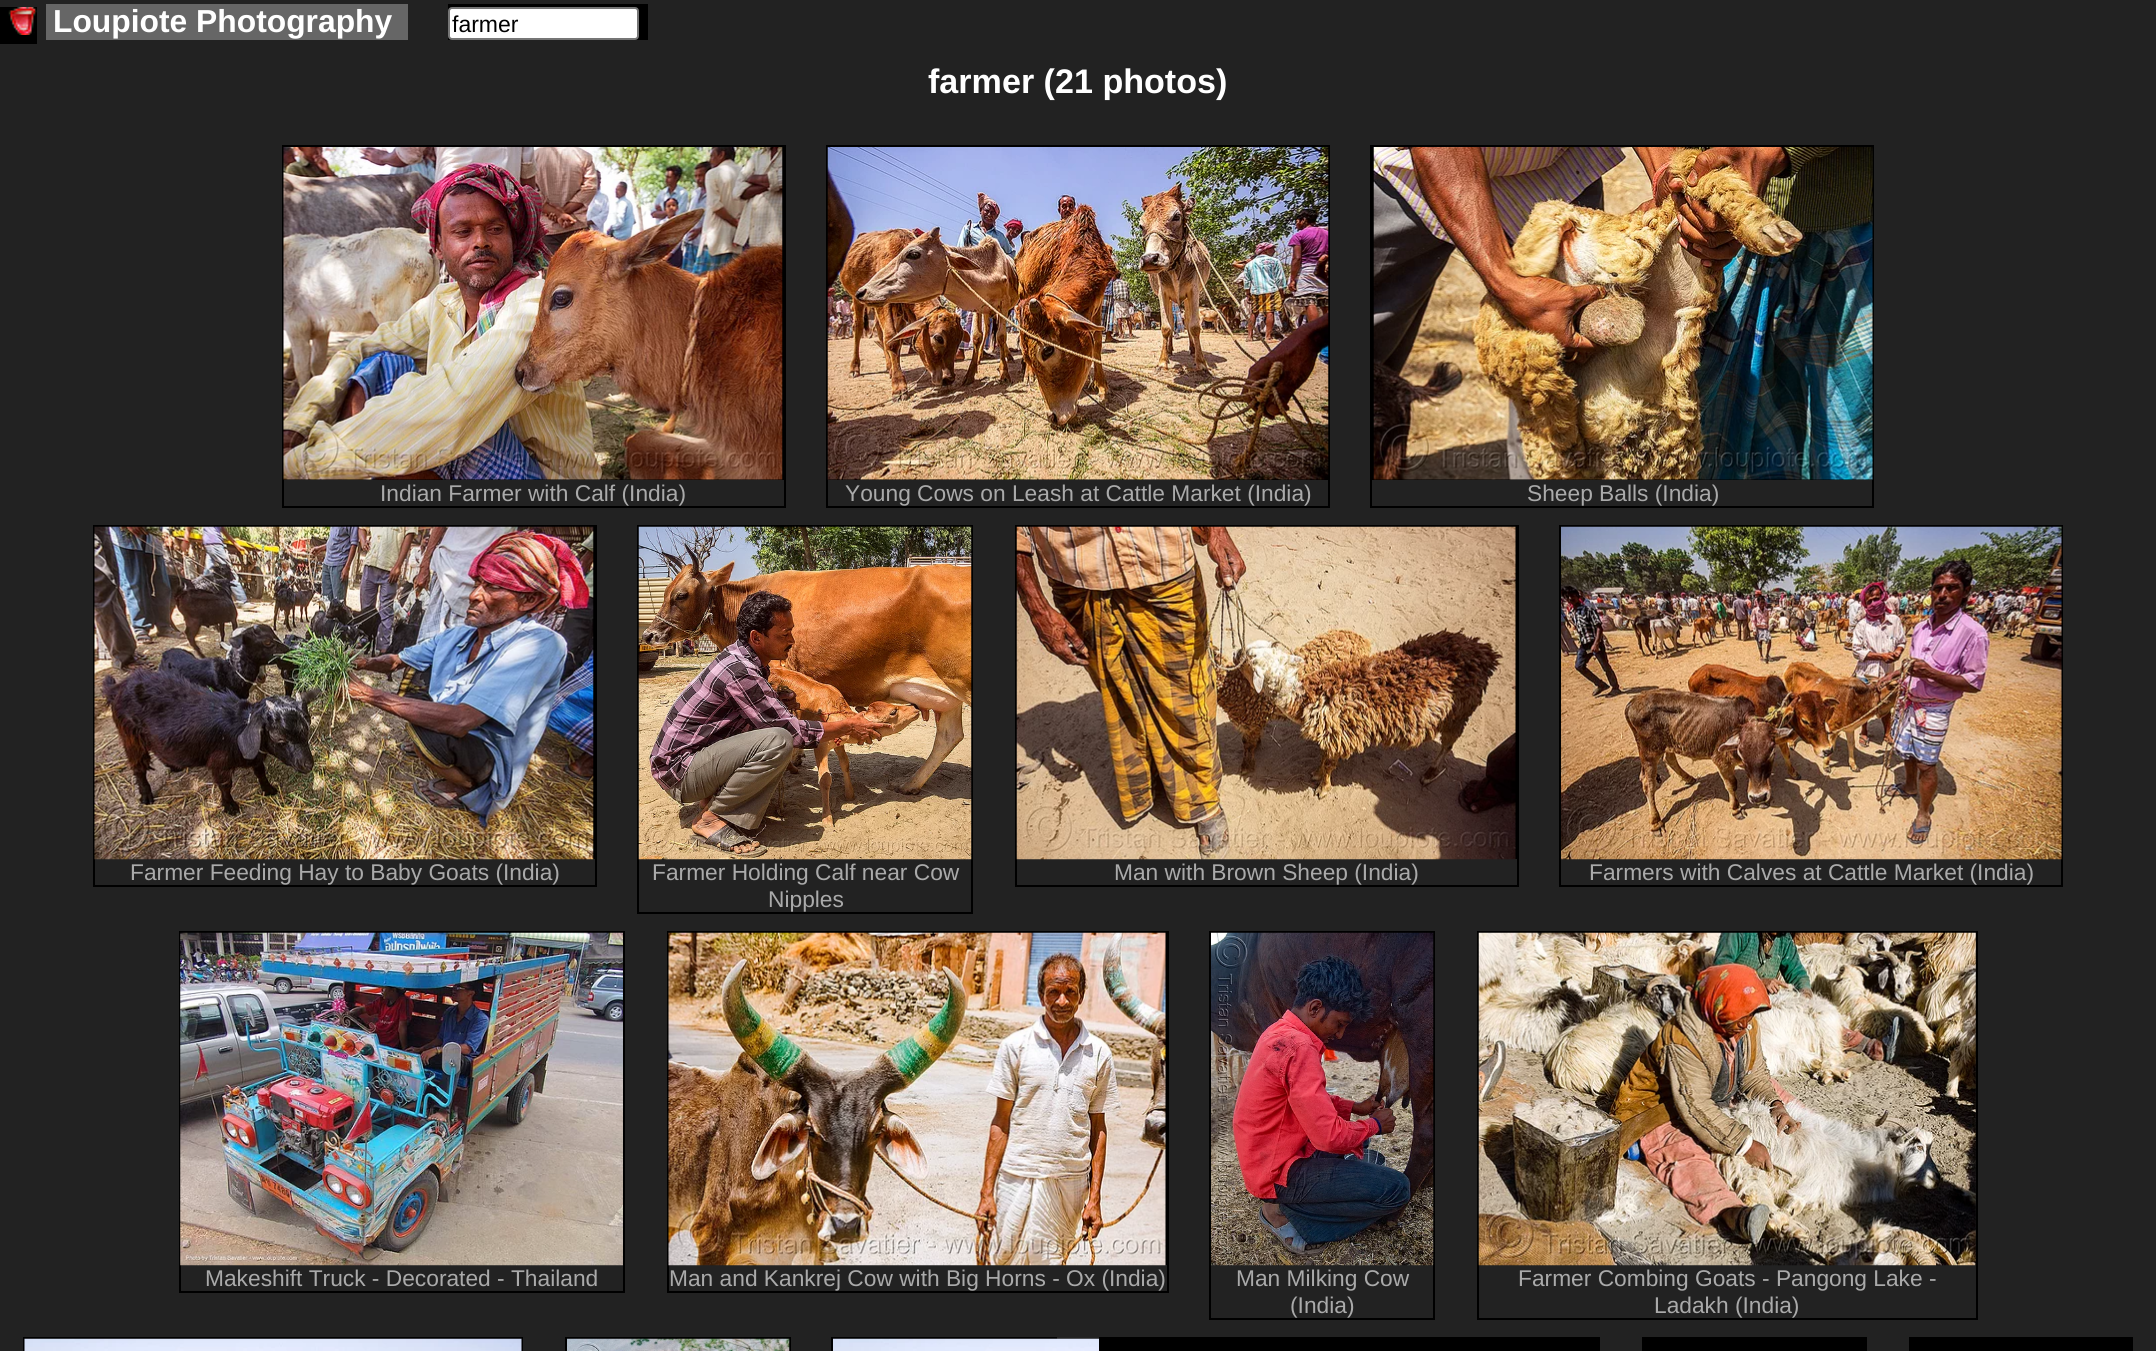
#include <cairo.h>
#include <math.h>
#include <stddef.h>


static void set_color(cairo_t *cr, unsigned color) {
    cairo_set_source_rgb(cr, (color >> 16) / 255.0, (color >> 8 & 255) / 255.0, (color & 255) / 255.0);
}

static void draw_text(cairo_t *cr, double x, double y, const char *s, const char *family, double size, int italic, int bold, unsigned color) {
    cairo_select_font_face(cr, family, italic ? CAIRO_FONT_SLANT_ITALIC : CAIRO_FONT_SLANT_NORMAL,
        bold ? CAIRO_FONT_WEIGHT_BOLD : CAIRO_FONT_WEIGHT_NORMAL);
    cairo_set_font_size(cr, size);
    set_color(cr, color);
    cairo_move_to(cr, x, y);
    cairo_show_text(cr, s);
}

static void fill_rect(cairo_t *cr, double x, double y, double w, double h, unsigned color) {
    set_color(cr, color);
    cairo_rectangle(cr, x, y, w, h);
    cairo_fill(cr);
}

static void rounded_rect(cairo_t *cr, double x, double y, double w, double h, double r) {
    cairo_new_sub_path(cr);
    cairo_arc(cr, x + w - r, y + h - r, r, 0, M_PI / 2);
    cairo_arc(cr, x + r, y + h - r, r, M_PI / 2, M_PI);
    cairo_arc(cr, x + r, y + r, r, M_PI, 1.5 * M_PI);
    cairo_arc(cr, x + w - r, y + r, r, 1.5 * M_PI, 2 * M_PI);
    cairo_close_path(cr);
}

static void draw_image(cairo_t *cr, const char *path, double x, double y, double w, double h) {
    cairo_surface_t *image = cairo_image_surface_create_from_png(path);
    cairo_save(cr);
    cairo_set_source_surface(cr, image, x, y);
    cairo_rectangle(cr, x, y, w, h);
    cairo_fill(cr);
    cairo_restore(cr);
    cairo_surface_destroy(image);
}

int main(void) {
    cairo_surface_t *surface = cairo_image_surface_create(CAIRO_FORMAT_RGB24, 2156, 1351);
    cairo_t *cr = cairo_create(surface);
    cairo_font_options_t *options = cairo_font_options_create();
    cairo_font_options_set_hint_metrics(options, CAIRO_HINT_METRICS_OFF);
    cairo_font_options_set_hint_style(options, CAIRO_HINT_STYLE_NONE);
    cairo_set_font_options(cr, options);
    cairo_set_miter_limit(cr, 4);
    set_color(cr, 0x222222);
    cairo_paint(cr);
    fill_rect(cr, 0, 7, 37, 37, 0x000000);
    draw_image(cr, "assets/img1.png", 8, 7, 29, 28);
    fill_rect(cr, 46, 4, 362, 36, 0x666666);
    draw_text(cr, 53, 32, "Loupiote Photography", "Liberation Sans", 31.8, 0, 1, 0xFFFFFF);
    fill_rect(cr, 448, 4, 200, 36, 0x000000);
    set_color(cr, 0xFFFFFF);
    rounded_rect(cr, 449, 8, 189, 31, 3);
    cairo_fill_preserve(cr);
    set_color(cr, 0x767676);
    cairo_stroke(cr);
    draw_text(cr, 452, 32, "farmer", "Liberation Sans", 23, 0, 0, 0x000000);
    draw_text(cr, 928, 93, "farmer (21 photos)", "Liberation Sans", 34.1, 0, 1, 0xFFFFFF);
    cairo_rectangle(cr, 283, 146, 502, 361);
    set_color(cr, 0x000000);
    cairo_stroke(cr);
    fill_rect(cr, 284, 147, 500, 333, 0x000000);
    draw_image(cr, "assets/img2.png", 283, 147, 500, 333);
    draw_text(cr, 380, 501, "Indian Farmer with Calf (India)", "Liberation Sans", 22.75, 0, 0, 0xAAAAAA);
    cairo_rectangle(cr, 827, 146, 502, 361);
    set_color(cr, 0x000000);
    cairo_stroke(cr);
    fill_rect(cr, 828, 479, 500, 1, 0x000000);
    draw_image(cr, "assets/img3.png", 827, 147, 502, 333);
    draw_text(cr, 845, 501, "Young Cows on Leash at Cattle Market (India)", "Liberation Sans", 22.75, 0, 0, 0xAAAAAA);
    cairo_rectangle(cr, 1371, 146, 502, 361);
    set_color(cr, 0x000000);
    cairo_stroke(cr);
    fill_rect(cr, 1372, 147, 500, 333, 0x000000);
    draw_image(cr, "assets/img4.png", 1373, 147, 500, 333);
    draw_text(cr, 1527, 501, "Sheep Balls (India)", "Liberation Sans", 22.75, 0, 0, 0xAAAAAA);
    cairo_rectangle(cr, 94, 526, 502, 360);
    set_color(cr, 0x000000);
    cairo_stroke(cr);
    fill_rect(cr, 593, 527, 2, 332, 0x000000);
    draw_image(cr, "assets/img5.png", 94, 526, 500, 334);
    draw_text(cr, 130, 880, "Farmer Feeding Hay to Baby Goats (India)", "Liberation Sans", 22.75, 0, 0, 0xAAAAAA);
    cairo_rectangle(cr, 638, 526, 334, 387);
    set_color(cr, 0x000000);
    cairo_stroke(cr);
    draw_image(cr, "assets/img6.png", 638, 526, 334, 334);
    draw_text(cr, 652, 880, "Farmer Holding Calf near Cow", "Liberation Sans", 22.75, 0, 0, 0xAAAAAA);
    draw_text(cr, 768, 907, "Nipples", "Liberation Sans", 22.75, 0, 0, 0xAAAAAA);
    cairo_rectangle(cr, 1016, 526, 502, 360);
    set_color(cr, 0x000000);
    cairo_stroke(cr);
    fill_rect(cr, 1515, 527, 2, 332, 0x000000);
    draw_image(cr, "assets/img7.png", 1016, 526, 500, 334);
    draw_text(cr, 1114, 880, "Man with Brown Sheep (India)", "Liberation Sans", 22.75, 0, 0, 0xAAAAAA);
    cairo_rectangle(cr, 1560, 526, 502, 360);
    set_color(cr, 0x000000);
    cairo_stroke(cr);
    draw_image(cr, "assets/img8.png", 1561, 526, 501, 334);
    draw_text(cr, 1589, 880, "Farmers with Calves at Cattle Market (India)", "Liberation Sans", 22.75, 0, 0, 0xAAAAAA);
    cairo_rectangle(cr, 180, 932, 444, 360);
    set_color(cr, 0x000000);
    cairo_stroke(cr);
    draw_image(cr, "assets/img9.png", 180, 932, 443, 334);
    draw_text(cr, 205, 1286, "Makeshift Truck - Decorated - Thailand", "Liberation Sans", 22.75, 0, 0, 0xAAAAAA);
    cairo_rectangle(cr, 668, 932, 500, 360);
    set_color(cr, 0x000000);
    cairo_stroke(cr);
    fill_rect(cr, 1165, 933, 2, 332, 0x000000);
    draw_image(cr, "assets/img10.png", 668, 932, 498, 334);
    draw_text(cr, 669, 1286, "Man and Kankrej Cow with Big Horns - Ox (India)", "Liberation Sans", 22.75, 0, 0, 0xAAAAAA);
    cairo_rectangle(cr, 1210, 932, 224, 387);
    set_color(cr, 0x000000);
    cairo_stroke(cr);
    draw_image(cr, "assets/img11.png", 1211, 932, 223, 334);
    draw_text(cr, 1236, 1286, "Man Milking Cow", "Liberation Sans", 22.75, 0, 0, 0xAAAAAA);
    draw_text(cr, 1290, 1313, "(India)", "Liberation Sans", 22.75, 0, 0, 0xAAAAAA);
    cairo_rectangle(cr, 1478, 932, 499, 387);
    set_color(cr, 0x000000);
    cairo_stroke(cr);
    draw_image(cr, "assets/img12.png", 1478, 932, 498, 334);
    draw_text(cr, 1518, 1286, "Farmer Combing Goats - Pangong Lake -", "Liberation Sans", 22.75, 0, 0, 0xAAAAAA);
    draw_text(cr, 1654, 1313, "Ladakh (India)", "Liberation Sans", 22.75, 0, 0, 0xAAAAAA);
    cairo_rectangle(cr, 24, 1338, 498, 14);
    set_color(cr, 0x000000);
    cairo_stroke(cr);
    draw_image(cr, "assets/img13.png", 24, 1338, 498, 13);
    cairo_rectangle(cr, 566, 1338, 224, 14);
    cairo_stroke(cr);
    draw_image(cr, "assets/img14.png", 567, 1338, 223, 13);
    cairo_rectangle(cr, 832, 1338, 224, 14);
    cairo_stroke(cr);
    draw_image(cr, "assets/img15.png", 833, 1338, 266, 13);
    cairo_rectangle(cr, 1100, 1338, 499, 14);
    cairo_stroke(cr);
    fill_rect(cr, 1101, 1339, 497, 12, 0x000000);
    cairo_rectangle(cr, 1643, 1338, 223, 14);
    cairo_stroke(cr);
    fill_rect(cr, 1644, 1339, 221, 12, 0x000000);
    cairo_rectangle(cr, 1910, 1338, 222, 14);
    cairo_stroke(cr);
    fill_rect(cr, 1911, 1339, 220, 12, 0x000000);
    cairo_surface_write_to_png(surface, "output.png");
    cairo_font_options_destroy(options);
    cairo_destroy(cr);
    cairo_surface_destroy(surface);
    return 0;
}
